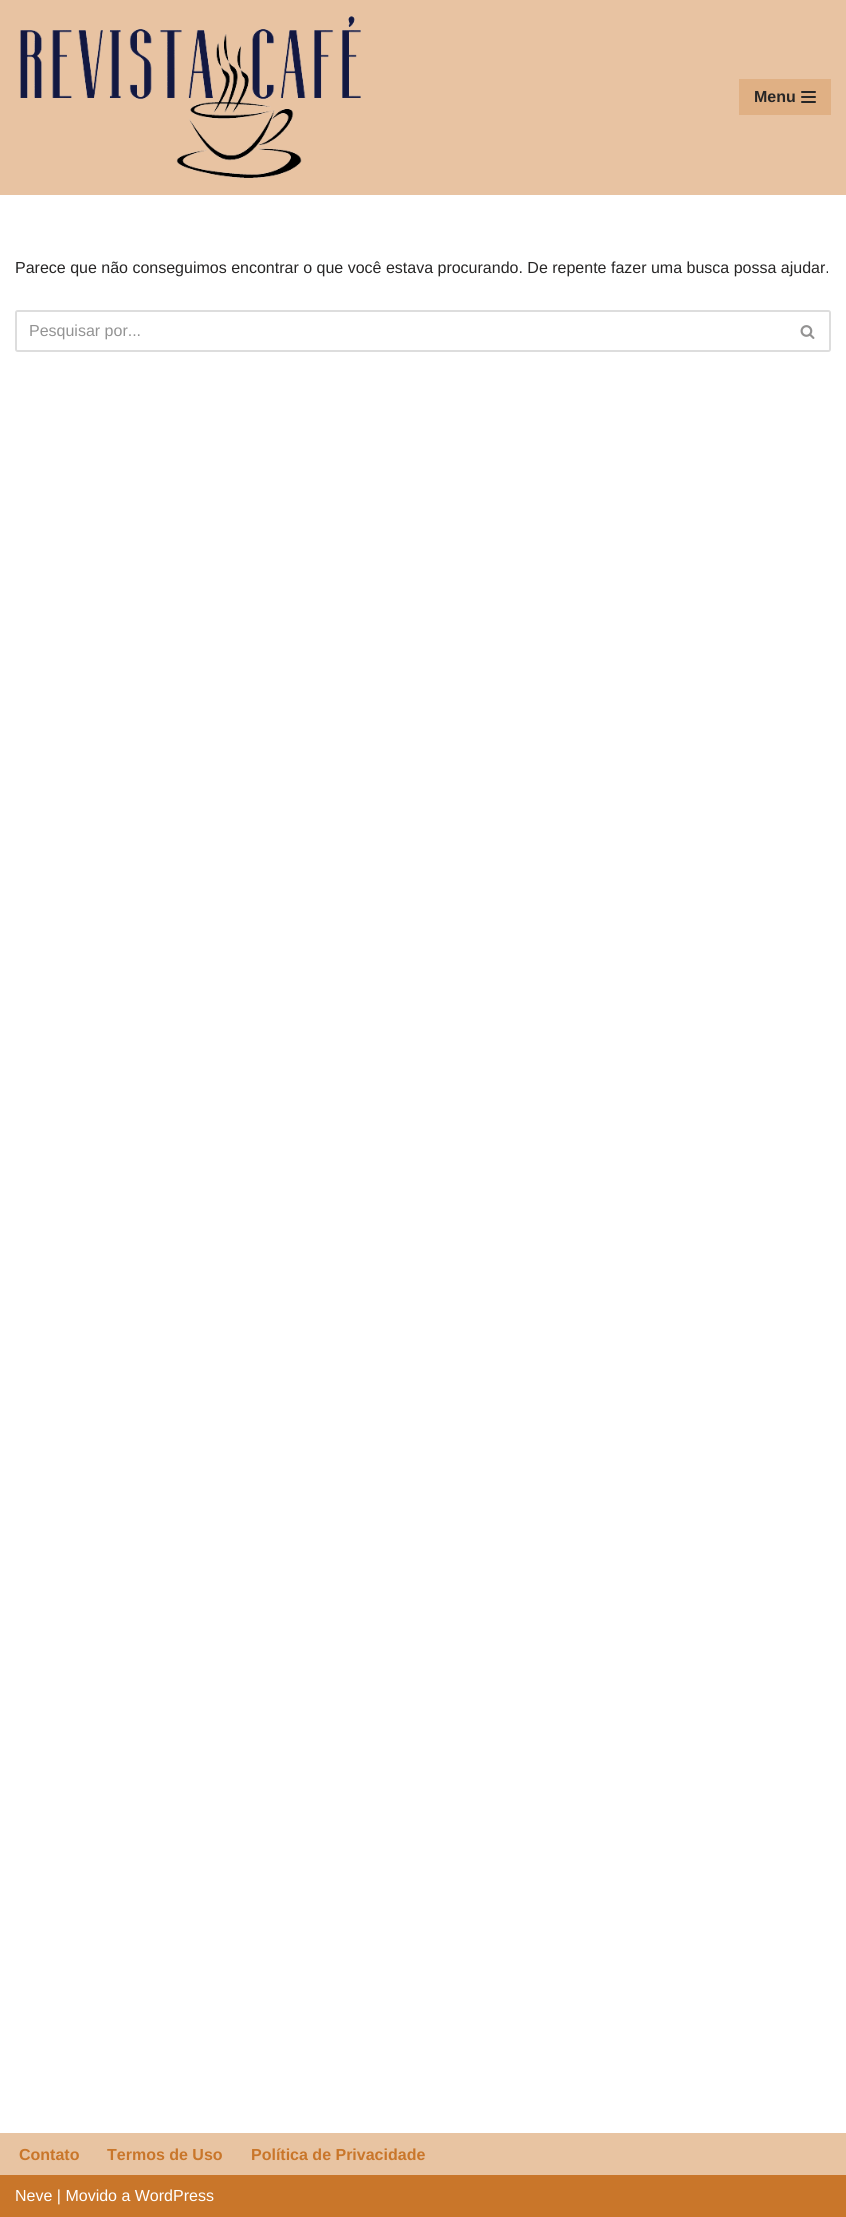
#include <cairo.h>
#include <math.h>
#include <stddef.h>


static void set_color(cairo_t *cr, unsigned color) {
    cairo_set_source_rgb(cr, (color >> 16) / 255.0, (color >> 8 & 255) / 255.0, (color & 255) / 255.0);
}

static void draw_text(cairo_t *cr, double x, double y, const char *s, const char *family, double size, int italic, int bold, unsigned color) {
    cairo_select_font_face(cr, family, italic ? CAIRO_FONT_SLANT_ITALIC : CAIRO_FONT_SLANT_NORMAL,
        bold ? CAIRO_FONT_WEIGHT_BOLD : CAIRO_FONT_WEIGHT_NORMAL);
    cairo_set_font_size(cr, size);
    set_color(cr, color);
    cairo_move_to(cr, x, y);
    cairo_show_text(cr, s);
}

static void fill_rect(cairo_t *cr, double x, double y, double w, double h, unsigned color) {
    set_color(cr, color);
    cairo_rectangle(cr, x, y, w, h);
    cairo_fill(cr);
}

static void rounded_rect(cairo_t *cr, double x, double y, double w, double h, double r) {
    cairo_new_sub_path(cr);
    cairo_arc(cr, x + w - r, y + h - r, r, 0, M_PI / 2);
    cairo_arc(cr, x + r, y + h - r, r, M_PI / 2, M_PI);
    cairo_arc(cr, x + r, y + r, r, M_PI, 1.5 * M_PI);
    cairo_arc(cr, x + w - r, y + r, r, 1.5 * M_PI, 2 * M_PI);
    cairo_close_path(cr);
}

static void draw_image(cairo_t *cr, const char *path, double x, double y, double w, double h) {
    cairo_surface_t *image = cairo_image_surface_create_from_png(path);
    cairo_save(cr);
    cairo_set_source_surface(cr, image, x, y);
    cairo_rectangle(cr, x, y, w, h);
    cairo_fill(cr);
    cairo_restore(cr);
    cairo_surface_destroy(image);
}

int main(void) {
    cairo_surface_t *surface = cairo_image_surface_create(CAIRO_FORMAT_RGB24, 846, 2217);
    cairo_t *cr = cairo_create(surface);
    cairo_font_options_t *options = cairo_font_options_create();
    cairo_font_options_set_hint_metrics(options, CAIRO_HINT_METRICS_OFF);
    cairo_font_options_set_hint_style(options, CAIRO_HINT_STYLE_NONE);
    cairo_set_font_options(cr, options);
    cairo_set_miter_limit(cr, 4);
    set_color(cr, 0xFFFFFF);
    cairo_paint(cr);
    fill_rect(cr, 0, 0, 846, 195, 0xE8C3A2);
    draw_image(cr, "assets/img1.png", 20, 16, 341, 162);
    fill_rect(cr, 739, 79, 92, 36, 0xE0B084);
    draw_text(cr, 754, 102, "Menu", "Liberation Sans", 16, 0, 1, 0x272626);
    rounded_rect(cr, 801, 96, 15, 2, 1);
    cairo_fill(cr);
    rounded_rect(cr, 801, 91, 15, 2, 1);
    cairo_fill(cr);
    rounded_rect(cr, 801, 101, 15, 2, 1);
    cairo_fill(cr);
    draw_text(cr, 15, 273, "Parece que não conseguimos encontrar o que você estava procurando. De repente fazer uma busca possa ajudar.", "Liberation Sans", 16, 0, 0, 0x272626);
    set_color(cr, 0xDDDDDD);
    cairo_set_fill_rule(cr, CAIRO_FILL_RULE_EVEN_ODD);
    cairo_new_path(cr);
    cairo_move_to(cr, 18, 310);
    cairo_line_to(cr, 786, 310);
    cairo_line_to(cr, 786, 352);
    cairo_line_to(cr, 18, 352);
    cairo_curve_to(cr, 16, 352, 15, 351, 15, 349);
    cairo_line_to(cr, 15, 313);
    cairo_curve_to(cr, 15, 311, 16, 310, 18, 310);
    cairo_close_path(cr);
    cairo_move_to(cr, 18, 312);
    cairo_line_to(cr, 786, 312);
    cairo_line_to(cr, 786, 350);
    cairo_line_to(cr, 18, 350);
    cairo_curve_to(cr, 17, 350, 17, 350, 17, 349);
    cairo_line_to(cr, 17, 313);
    cairo_curve_to(cr, 17, 312, 17, 312, 18, 312);
    cairo_close_path(cr);
    cairo_fill(cr);
    draw_text(cr, 29, 336, "Pesquisar por...", "Liberation Sans", 16, 0, 0, 0x939393);
    set_color(cr, 0xDDDDDD);
    cairo_new_path(cr);
    cairo_move_to(cr, 786, 310);
    cairo_line_to(cr, 828, 310);
    cairo_curve_to(cr, 830, 310, 831, 311, 831, 313);
    cairo_line_to(cr, 831, 349);
    cairo_curve_to(cr, 831, 351, 830, 352, 828, 352);
    cairo_line_to(cr, 786, 352);
    cairo_close_path(cr);
    cairo_move_to(cr, 786, 312);
    cairo_line_to(cr, 828, 312);
    cairo_curve_to(cr, 829, 312, 829, 312, 829, 313);
    cairo_line_to(cr, 829, 349);
    cairo_curve_to(cr, 829, 350, 829, 350, 828, 350);
    cairo_line_to(cr, 786, 350);
    cairo_close_path(cr);
    cairo_fill(cr);
    draw_image(cr, "assets/img2.png", 800, 325, 15, 14);
    fill_rect(cr, 0, 2133, 846, 42, 0xE8C4A2);
    draw_text(cr, 19, 2160, "Contato", "Liberation Sans", 16, 0, 1, 0xC9762A);
    draw_text(cr, 107, 2160, "Termos de Uso", "Liberation Sans", 16, 0, 1, 0xC9762A);
    draw_text(cr, 251, 2160, "Política de Privacidade", "Liberation Sans", 16, 0, 1, 0xC9762A);
    fill_rect(cr, 0, 2175, 846, 42, 0xC9762A);
    draw_text(cr, 15, 2201, "Neve | Movido a WordPress", "Liberation Sans", 16, 0, 0, 0xFFFFFF);
    cairo_surface_write_to_png(surface, "output.png");
    cairo_font_options_destroy(options);
    cairo_destroy(cr);
    cairo_surface_destroy(surface);
    return 0;
}
